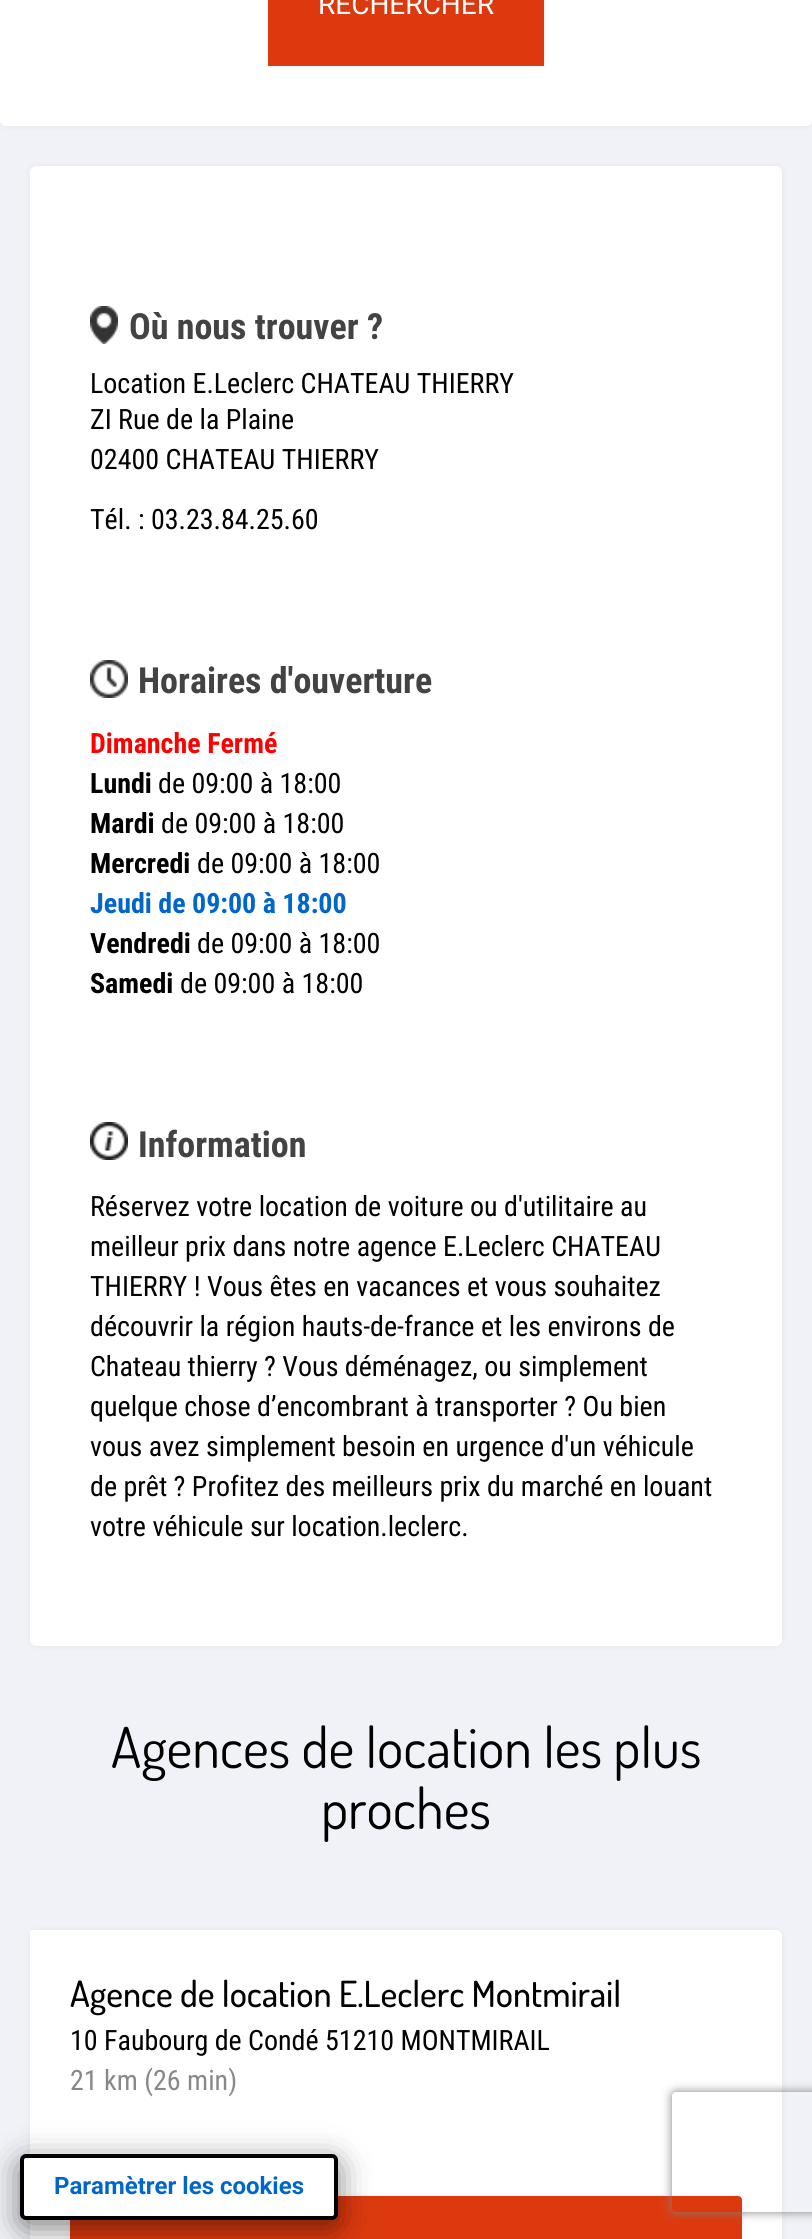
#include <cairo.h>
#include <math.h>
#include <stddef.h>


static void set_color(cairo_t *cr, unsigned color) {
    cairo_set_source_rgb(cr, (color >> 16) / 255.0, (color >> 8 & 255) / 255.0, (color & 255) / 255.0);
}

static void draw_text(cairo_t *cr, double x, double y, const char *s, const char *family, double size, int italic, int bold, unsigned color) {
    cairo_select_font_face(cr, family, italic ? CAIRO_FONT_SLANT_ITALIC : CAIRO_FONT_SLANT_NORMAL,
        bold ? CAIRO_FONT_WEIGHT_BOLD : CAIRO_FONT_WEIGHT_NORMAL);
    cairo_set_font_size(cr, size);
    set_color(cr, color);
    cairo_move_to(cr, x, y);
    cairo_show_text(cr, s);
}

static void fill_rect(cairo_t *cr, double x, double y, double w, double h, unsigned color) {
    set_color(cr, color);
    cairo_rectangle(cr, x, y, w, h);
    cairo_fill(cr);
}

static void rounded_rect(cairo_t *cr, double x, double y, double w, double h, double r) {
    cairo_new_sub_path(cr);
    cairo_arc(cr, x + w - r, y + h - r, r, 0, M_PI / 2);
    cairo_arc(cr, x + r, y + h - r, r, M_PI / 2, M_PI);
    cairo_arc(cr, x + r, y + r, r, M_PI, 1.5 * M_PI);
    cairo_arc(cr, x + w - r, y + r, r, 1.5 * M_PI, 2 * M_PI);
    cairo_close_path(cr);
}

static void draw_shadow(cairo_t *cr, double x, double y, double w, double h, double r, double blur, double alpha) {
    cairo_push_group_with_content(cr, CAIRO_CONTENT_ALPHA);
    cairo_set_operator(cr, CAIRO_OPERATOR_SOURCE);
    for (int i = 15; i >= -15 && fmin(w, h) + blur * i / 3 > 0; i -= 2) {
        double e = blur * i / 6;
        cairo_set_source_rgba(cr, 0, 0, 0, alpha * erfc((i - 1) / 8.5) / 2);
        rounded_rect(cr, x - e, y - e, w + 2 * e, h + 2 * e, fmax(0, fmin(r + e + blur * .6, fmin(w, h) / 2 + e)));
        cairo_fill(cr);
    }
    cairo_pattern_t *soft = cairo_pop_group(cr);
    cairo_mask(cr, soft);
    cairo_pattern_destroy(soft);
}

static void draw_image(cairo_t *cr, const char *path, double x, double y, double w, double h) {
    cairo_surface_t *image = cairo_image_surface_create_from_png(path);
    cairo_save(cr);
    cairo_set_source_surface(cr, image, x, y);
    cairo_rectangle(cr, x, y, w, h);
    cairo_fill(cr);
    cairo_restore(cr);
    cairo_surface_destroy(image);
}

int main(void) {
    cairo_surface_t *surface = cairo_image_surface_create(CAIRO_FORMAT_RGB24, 812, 2239);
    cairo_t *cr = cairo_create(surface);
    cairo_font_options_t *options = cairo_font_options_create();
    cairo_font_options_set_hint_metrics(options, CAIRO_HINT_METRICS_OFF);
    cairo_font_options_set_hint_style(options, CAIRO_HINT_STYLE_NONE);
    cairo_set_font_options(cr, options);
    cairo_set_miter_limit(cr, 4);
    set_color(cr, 0xF1F2F7);
    cairo_paint(cr);
    set_color(cr, 0x000000);
    draw_shadow(cr, 0, -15, 812, 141, 6, 3, 0.06);
    set_color(cr, 0xFFFFFF);
    rounded_rect(cr, 0, -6, 812, 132, 6);
    cairo_fill(cr);
    set_color(cr, 0x000000);
    draw_shadow(cr, 268, -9, 276, 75, 0, 3, 0.06);
    fill_rect(cr, 268, 0, 276, 66, 0xDD390E);
    draw_text(cr, 318, 14, "RECHERCHER", "Roboto", 28, 0, 0, 0xFFFFFF);
    set_color(cr, 0x000000);
    draw_shadow(cr, 30, 166, 752, 1480, 6, 3, 0.06);
    set_color(cr, 0xFFFFFF);
    rounded_rect(cr, 30, 166, 752, 1480, 6);
    cairo_fill(cr);
    draw_image(cr, "assets/img1.png", 90, 306, 28, 38);
    draw_text(cr, 129, 339, "Où nous trouver ?", "Roboto Condensed", 36, 0, 1, 0x434343);
    draw_text(cr, 90, 393, "Location E.Leclerc CHATEAU THIERRY", "Roboto Condensed", 28, 0, 0, 0x000000);
    draw_text(cr, 90, 429, "ZI Rue de la Plaine", "Roboto Condensed", 28, 0, 0, 0x000000);
    draw_text(cr, 90, 469, "02400 CHATEAU THIERRY", "Roboto Condensed", 28, 0, 0, 0x000000);
    draw_text(cr, 90, 529, "Tél. : 03.23.84.25.60", "Roboto Condensed", 28, 0, 0, 0x000000);
    draw_image(cr, "assets/img2.png", 90, 660, 38, 38);
    draw_text(cr, 138, 693, "Horaires d'ouverture", "Roboto Condensed", 36, 0, 1, 0x434343);
    draw_text(cr, 90, 753, "Dimanche Fermé", "Roboto Condensed", 28, 0, 1, 0xFF0000);
    draw_text(cr, 90, 793, "Lundi", "Roboto Condensed", 28, 0, 1, 0x000000);
    draw_text(cr, 158, 793, "de 09:00 à 18:00", "Roboto Condensed", 28, 0, 0, 0x000000);
    draw_text(cr, 90, 833, "Mardi", "Roboto Condensed", 28, 0, 1, 0x000000);
    draw_text(cr, 161, 833, "de 09:00 à 18:00", "Roboto Condensed", 28, 0, 0, 0x000000);
    draw_text(cr, 90, 873, "Mercredi", "Roboto Condensed", 28, 0, 1, 0x000000);
    draw_text(cr, 197, 873, "de 09:00 à 18:00", "Roboto Condensed", 28, 0, 0, 0x000000);
    draw_text(cr, 90, 913, "Jeudi de 09:00 à 18:00", "Roboto Condensed", 28, 0, 1, 0x0066CC);
    draw_text(cr, 90, 953, "Vendredi", "Roboto Condensed", 28, 0, 1, 0x000000);
    draw_text(cr, 197, 953, "de 09:00 à 18:00", "Roboto Condensed", 28, 0, 0, 0x000000);
    draw_text(cr, 90, 993, "Samedi", "Roboto Condensed", 28, 0, 1, 0x000000);
    draw_text(cr, 180, 993, "de 09:00 à 18:00", "Roboto Condensed", 28, 0, 0, 0x000000);
    draw_image(cr, "assets/img3.png", 90, 1122, 38, 38);
    draw_text(cr, 138, 1157, "Information", "Roboto Condensed", 36, 0, 1, 0x434343);
    draw_text(cr, 90, 1216, "Réservez votre location de voiture ou d'utilitaire au", "Roboto Condensed", 28, 0, 0, 0x000000);
    draw_text(cr, 90, 1256, "meilleur prix dans notre agence E.Leclerc CHATEAU", "Roboto Condensed", 28, 0, 0, 0x000000);
    draw_text(cr, 90, 1296, "THIERRY ! Vous êtes en vacances et vous souhaitez", "Roboto Condensed", 28, 0, 0, 0x000000);
    draw_text(cr, 90, 1336, "découvrir la région hauts-de-france et les environs de", "Roboto Condensed", 28, 0, 0, 0x000000);
    draw_text(cr, 90, 1376, "Chateau thierry ? Vous déménagez, ou simplement", "Roboto Condensed", 28, 0, 0, 0x000000);
    draw_text(cr, 90, 1416, "quelque chose d’encombrant à transporter ? Ou bien", "Roboto Condensed", 28, 0, 0, 0x000000);
    draw_text(cr, 90, 1456, "vous avez simplement besoin en urgence d'un véhicule", "Roboto Condensed", 28, 0, 0, 0x000000);
    draw_text(cr, 90, 1496, "de prêt ? Profitez des meilleurs prix du marché en louant", "Roboto Condensed", 28, 0, 0, 0x000000);
    draw_text(cr, 90, 1536, "votre véhicule sur location.leclerc.", "Roboto Condensed", 28, 0, 0, 0x000000);
    draw_text(cr, 111, 1768, "Agences de location les plus", "Dosis", 56, 0, 0, 0x000000);
    draw_text(cr, 321, 1829, "proches", "Dosis", 56, 0, 0, 0x000000);
    set_color(cr, 0x000000);
    draw_shadow(cr, 30, 1930, 752, 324, 6, 3, 0.06);
    set_color(cr, 0xFFFFFF);
    cairo_new_path(cr);
    cairo_move_to(cr, 30, 1930);
    cairo_line_to(cr, 776, 1930);
    cairo_curve_to(cr, 779.5, 1930, 782, 1932.5, 782, 1936);
    cairo_line_to(cr, 782, 2239);
    cairo_curve_to(cr, 782, 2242.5, 779.5, 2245, 776, 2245);
    cairo_line_to(cr, 30, 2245);
    cairo_close_path(cr);
    cairo_fill(cr);
    draw_text(cr, 70, 2007, "Agence de location E.Leclerc Montmirail", "Dosis Medium", 36, 0, 0, 0x000000);
    draw_text(cr, 70, 2050, "10 Faubourg de Condé 51210 MONTMIRAIL", "Roboto Condensed", 28, 0, 0, 0x000000);
    draw_text(cr, 70, 2090, "21 km (26 min)", "Roboto Condensed", 28, 0, 0, 0x888888);
    set_color(cr, 0x000000);
    draw_shadow(cr, 70, 2196, 672, 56, 4, 3, 0.06);
    set_color(cr, 0xDD390E);
    rounded_rect(cr, 71, 2197, 670, 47, 3);
    cairo_fill_preserve(cr);
    cairo_stroke(cr);
    set_color(cr, 0x000000);
    draw_shadow(cr, 20, 2162, 318, 66, 6, 16, 0.5);
    set_color(cr, 0xFFFFFF);
    rounded_rect(cr, 22, 2156, 314, 62, 4);
    cairo_fill_preserve(cr);
    set_color(cr, 0x000000);
    cairo_set_line_width(cr, 4);
    cairo_stroke(cr);
    draw_text(cr, 54, 2194, "Paramètrer les cookies", "Roboto", 24, 0, 1, 0x0066CC);
    cairo_save(cr);
    cairo_set_fill_rule(cr, CAIRO_FILL_RULE_EVEN_ODD);
    cairo_new_path(cr);
    cairo_move_to(cr, 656, 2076);
    cairo_line_to(cr, 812, 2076);
    cairo_line_to(cr, 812, 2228);
    cairo_line_to(cr, 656, 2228);
    cairo_close_path(cr);
    cairo_move_to(cr, 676, 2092);
    cairo_line_to(cr, 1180, 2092);
    cairo_curve_to(cr, 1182, 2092, 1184, 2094, 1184, 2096);
    cairo_line_to(cr, 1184, 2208);
    cairo_curve_to(cr, 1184, 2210, 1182, 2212, 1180, 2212);
    cairo_line_to(cr, 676, 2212);
    cairo_curve_to(cr, 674, 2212, 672, 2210, 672, 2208);
    cairo_line_to(cr, 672, 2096);
    cairo_curve_to(cr, 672, 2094, 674, 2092, 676, 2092);
    cairo_close_path(cr);
    cairo_clip(cr);
    set_color(cr, 0x808080);
    draw_shadow(cr, 672, 2092, 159, 120, 4, 5, 1);
    cairo_restore(cr);
    cairo_surface_write_to_png(surface, "output.png");
    cairo_font_options_destroy(options);
    cairo_destroy(cr);
    cairo_surface_destroy(surface);
    return 0;
}
